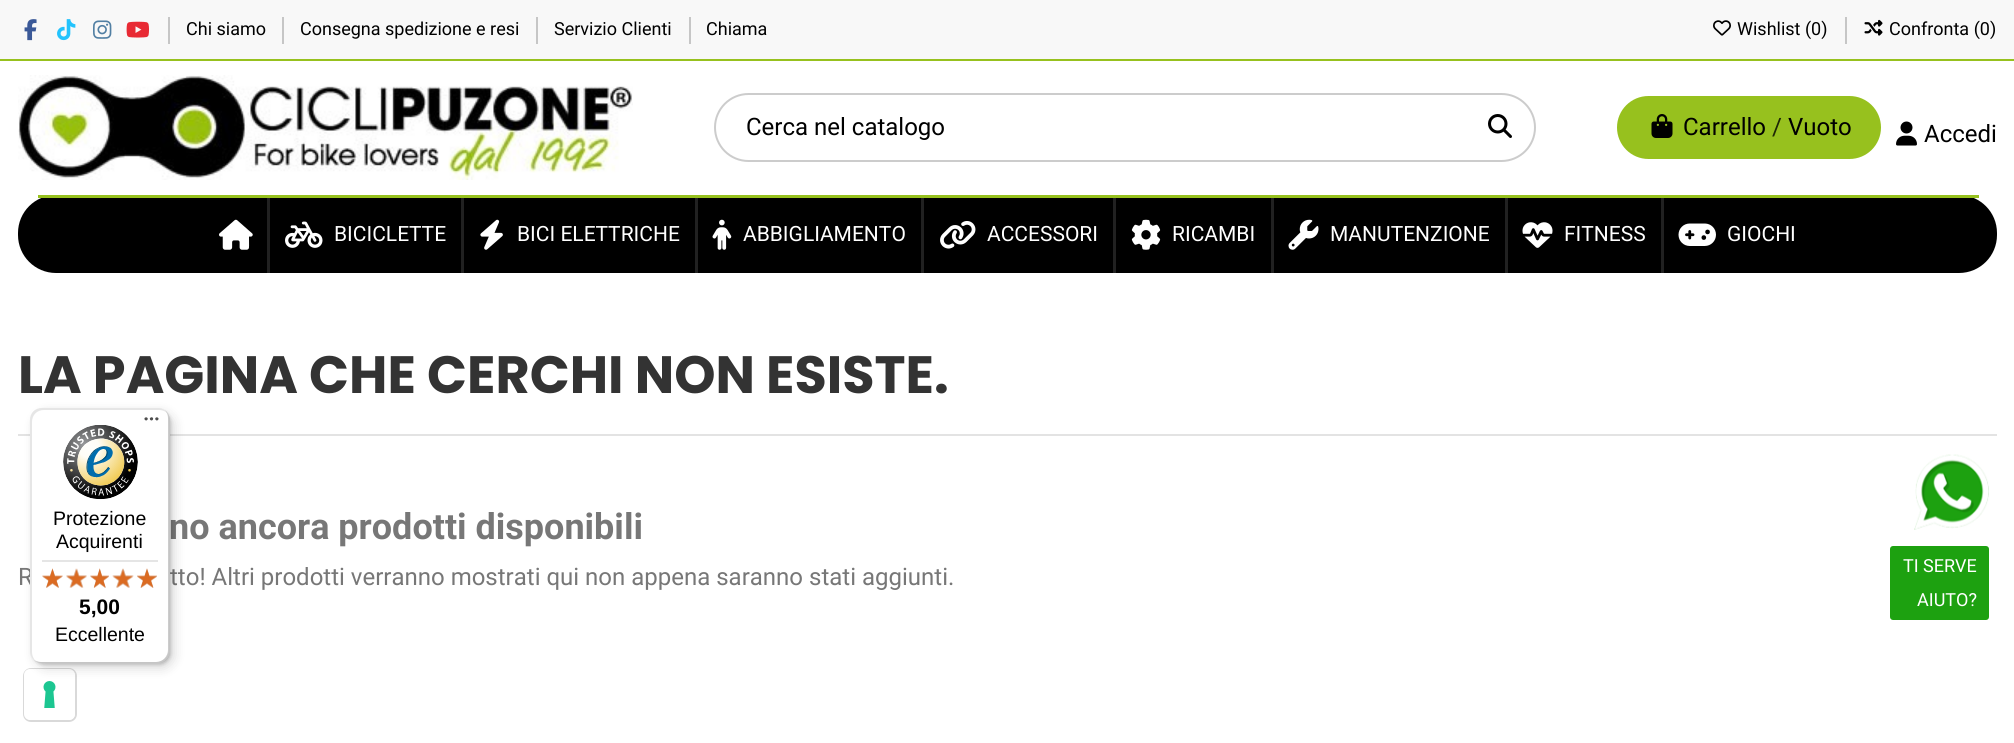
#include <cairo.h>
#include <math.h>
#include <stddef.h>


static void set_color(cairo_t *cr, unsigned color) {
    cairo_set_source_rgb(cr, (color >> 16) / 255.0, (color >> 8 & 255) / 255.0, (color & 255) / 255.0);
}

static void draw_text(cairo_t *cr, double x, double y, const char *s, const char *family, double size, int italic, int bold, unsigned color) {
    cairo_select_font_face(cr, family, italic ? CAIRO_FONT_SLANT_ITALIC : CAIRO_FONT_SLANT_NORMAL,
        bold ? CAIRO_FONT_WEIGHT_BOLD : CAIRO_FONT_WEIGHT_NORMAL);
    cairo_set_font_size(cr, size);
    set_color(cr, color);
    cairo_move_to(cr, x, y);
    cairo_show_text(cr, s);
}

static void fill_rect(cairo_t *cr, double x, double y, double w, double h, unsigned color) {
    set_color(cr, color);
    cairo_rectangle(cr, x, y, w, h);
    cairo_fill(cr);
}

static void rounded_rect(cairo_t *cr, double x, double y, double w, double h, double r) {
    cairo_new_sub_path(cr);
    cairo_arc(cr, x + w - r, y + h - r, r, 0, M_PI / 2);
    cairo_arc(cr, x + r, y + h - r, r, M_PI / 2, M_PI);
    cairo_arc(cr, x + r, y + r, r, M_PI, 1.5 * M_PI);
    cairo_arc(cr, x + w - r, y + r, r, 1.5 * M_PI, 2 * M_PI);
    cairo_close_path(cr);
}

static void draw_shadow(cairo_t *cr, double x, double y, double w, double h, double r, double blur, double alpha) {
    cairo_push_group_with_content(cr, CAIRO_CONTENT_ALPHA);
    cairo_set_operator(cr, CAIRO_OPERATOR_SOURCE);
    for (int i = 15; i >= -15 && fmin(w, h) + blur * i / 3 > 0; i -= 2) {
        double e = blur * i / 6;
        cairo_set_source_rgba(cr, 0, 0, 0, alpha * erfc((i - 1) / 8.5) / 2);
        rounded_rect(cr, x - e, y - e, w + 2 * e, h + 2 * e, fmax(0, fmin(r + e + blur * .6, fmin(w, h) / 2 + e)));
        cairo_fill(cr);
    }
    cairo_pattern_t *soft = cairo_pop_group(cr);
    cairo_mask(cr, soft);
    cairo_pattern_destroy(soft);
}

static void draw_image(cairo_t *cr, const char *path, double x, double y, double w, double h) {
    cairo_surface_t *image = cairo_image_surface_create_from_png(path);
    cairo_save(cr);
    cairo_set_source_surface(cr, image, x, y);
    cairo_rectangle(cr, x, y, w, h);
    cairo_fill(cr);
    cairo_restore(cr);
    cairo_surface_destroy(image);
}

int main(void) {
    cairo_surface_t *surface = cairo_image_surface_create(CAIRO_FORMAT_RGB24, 2014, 743);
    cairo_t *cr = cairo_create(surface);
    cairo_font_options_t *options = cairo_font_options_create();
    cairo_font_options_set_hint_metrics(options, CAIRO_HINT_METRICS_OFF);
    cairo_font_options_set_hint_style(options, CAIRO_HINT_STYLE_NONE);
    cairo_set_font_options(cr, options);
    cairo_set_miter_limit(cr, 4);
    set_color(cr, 0xFFFFFF);
    cairo_paint(cr);
    fill_rect(cr, 0, 0, 2014, 59, 0xF8F8F8);
    fill_rect(cr, 0, 59, 2014, 2, 0x97C11E);
    draw_image(cr, "assets/img1.png", 24, 19, 13, 22);
    draw_image(cr, "assets/img2.png", 57, 19, 19, 22);
    draw_image(cr, "assets/img3.png", 93, 20, 19, 19);
    draw_image(cr, "assets/img4.png", 126, 21, 23, 17);
    fill_rect(cr, 168, 17, 2, 27, 0xC6C6C6);
    draw_text(cr, 186, 35, "Chi siamo", "Roboto", 18, 0, 0, 0x000000);
    fill_rect(cr, 282, 17, 2, 27, 0xC6C6C6);
    draw_text(cr, 300, 35, "Consegna spedizione e resi", "Roboto", 18, 0, 0, 0x000000);
    fill_rect(cr, 536, 17, 2, 27, 0xC6C6C6);
    draw_text(cr, 554, 35, "Servizio Clienti", "Roboto", 18, 0, 0, 0x000000);
    fill_rect(cr, 689, 17, 2, 27, 0xC6C6C6);
    draw_text(cr, 706, 35, "Chiama", "Roboto", 18, 0, 0, 0x000000);
    draw_image(cr, "assets/img5.png", 1713, 20, 18, 16);
    draw_text(cr, 1737, 35, "Wishlist (0)", "Roboto", 18, 0, 0, 0x000000);
    fill_rect(cr, 1845, 17, 2, 27, 0xC6C6C6);
    draw_image(cr, "assets/img6.png", 1864, 19, 19, 17);
    draw_text(cr, 1889, 35, "Confronta (0)", "Roboto", 18, 0, 0, 0x000000);
    draw_image(cr, "assets/img7.png", 18, 75, 615, 105);
    rounded_rect(cr, 715, 94, 820, 67, 33.5);
    set_color(cr, 0xCCCCCC);
    cairo_stroke(cr);
    draw_text(cr, 746, 135, "Cerca nel catalogo", "Roboto", 24, 0, 0, 0x000000);
    draw_image(cr, "assets/img8.png", 1488, 114, 24, 24);
    set_color(cr, 0x97C11E);
    rounded_rect(cr, 1617, 96, 264, 63, 31.5);
    cairo_fill(cr);
    draw_image(cr, "assets/img9.png", 1651, 114, 22, 24);
    draw_text(cr, 1683, 135, "Carrello", "Roboto", 24, 0, 0, 0x000000);
    draw_text(cr, 1772, 135, "/", "Roboto", 24, 0, 0, 0x1E2706);
    draw_text(cr, 1788, 135, "Vuoto", "Roboto", 24, 0, 0, 0x000000);
    draw_image(cr, "assets/img10.png", 1896, 121, 21, 25);
    draw_text(cr, 1924, 142, "Accedi", "Roboto", 24, 0, 0, 0x000000);
    rounded_rect(cr, 18, 195, 1979, 78, 38);
    cairo_fill(cr);
    fill_rect(cr, 38, 195, 1941, 3, 0x97C11E);
    draw_image(cr, "assets/img11.png", 219, 219, 34, 31);
    fill_rect(cr, 267, 198, 3, 75, 0x212121);
    draw_image(cr, "assets/img12.png", 285, 221, 38, 27);
    draw_text(cr, 334, 241, "BICICLETTE", "Roboto", 21, 0, 0, 0xFFFFFF);
    fill_rect(cr, 461, 198, 3, 75, 0x212121);
    draw_image(cr, "assets/img13.png", 480, 219, 23, 31);
    draw_text(cr, 517, 241, "BICI ELETTRICHE", "Roboto", 21, 0, 0, 0xFFFFFF);
    fill_rect(cr, 695, 198, 3, 75, 0x212121);
    draw_image(cr, "assets/img14.png", 712, 219, 20, 31);
    draw_text(cr, 743, 241, "ABBIGLIAMENTO", "Roboto", 21, 0, 0, 0xFFFFFF);
    fill_rect(cr, 921, 198, 3, 75, 0x212121);
    draw_image(cr, "assets/img15.png", 940, 221, 36, 28);
    draw_text(cr, 987, 241, "ACCESSORI", "Roboto", 21, 0, 0, 0xFFFFFF);
    fill_rect(cr, 1113, 198, 3, 75, 0x212121);
    draw_image(cr, "assets/img16.png", 1131, 219, 30, 31);
    draw_text(cr, 1172, 241, "RICAMBI", "Roboto", 21, 0, 0, 0xFFFFFF);
    fill_rect(cr, 1271, 198, 3, 75, 0x212121);
    draw_image(cr, "assets/img17.png", 1288, 219, 31, 31);
    draw_text(cr, 1330, 241, "MANUTENZIONE", "Roboto", 21, 0, 0, 0xFFFFFF);
    fill_rect(cr, 1505, 198, 3, 75, 0x212121);
    draw_image(cr, "assets/img18.png", 1522, 222, 31, 26);
    draw_text(cr, 1564, 241, "FITNESS", "Roboto", 21, 0, 0, 0xFFFFFF);
    fill_rect(cr, 1661, 198, 3, 75, 0x212121);
    draw_image(cr, "assets/img19.png", 1678, 223, 38, 23);
    draw_text(cr, 1727, 241, "GIOCHI", "Roboto", 21, 0, 0, 0xFFFFFF);
    fill_rect(cr, 18, 434, 1979, 2, 0xE3E3E3);
    draw_text(cr, 18, 393, "LA PAGINA CHE CERCHI NON ESISTE.", "Poppins", 52.5, 0, 1, 0x333333);
    draw_text(cr, 169, 539, "no ancora prodotti disponibili", "Roboto", 36, 0, 1, 0x777777);
    draw_text(cr, 18, 585, "R", "Roboto", 24, 0, 0, 0x777777);
    draw_text(cr, 170, 585, "tto! Altri prodotti verranno mostrati qui non appena saranno stati aggiunti.", "Roboto", 24, 0, 0, 0x777777);
    draw_image(cr, "assets/img20.png", 1914, 454, 75, 76);
    set_color(cr, 0x1DA110);
    rounded_rect(cr, 1890, 546, 99, 74, 3);
    cairo_fill(cr);
    draw_text(cr, 1903, 572, "TI SERVE", "Roboto", 18, 0, 0, 0xFFFFFF);
    draw_text(cr, 1917, 606, "AIUTO?", "Roboto", 18, 0, 0, 0xFFFFFF);
    rounded_rect(cr, 24, 669, 52, 52, 7);
    set_color(cr, 0xD9D9D9);
    cairo_stroke(cr);
    set_color(cr, 0xFFFFFF);
    rounded_rect(cr, 24, 669, 51, 51, 6);
    cairo_fill(cr);
    draw_image(cr, "assets/img33.png", 43, 681, 13, 27);
    set_color(cr, 0x000000);
    draw_shadow(cr, 35, 413, 139, 255, 12, 6, 0.15);
    draw_shadow(cr, 32, 410, 139, 255, 12, 1.5, 0.15);
    set_color(cr, 0xFFFFFF);
    rounded_rect(cr, 30, 408, 140, 255, 12);
    cairo_fill(cr);
    cairo_set_source_rgba(cr, 0, 0, 0, 0.1);
    cairo_new_path(cr);
    cairo_move_to(cr, 44, 410);
    cairo_line_to(cr, 159, 410);
    cairo_curve_to(cr, 163, 410, 167, 412, 169, 415);
    cairo_curve_to(cr, 167, 411, 163, 408, 158, 408);
    cairo_line_to(cr, 42, 408);
    cairo_curve_to(cr, 35, 408, 30, 413, 30, 420);
    cairo_line_to(cr, 30, 651);
    cairo_curve_to(cr, 30, 656, 33, 660, 37, 662);
    cairo_curve_to(cr, 34, 660, 32, 656, 32, 652);
    cairo_line_to(cr, 32, 422);
    cairo_curve_to(cr, 32, 415, 37, 410, 44, 410);
    cairo_close_path(cr);
    cairo_fill(cr);
    cairo_set_source_rgba(cr, 0, 0, 0, 0.2);
    cairo_new_path(cr);
    cairo_move_to(cr, 35, 660);
    cairo_curve_to(cr, 37, 662, 39, 663, 42, 663);
    cairo_line_to(cr, 158, 663);
    cairo_curve_to(cr, 165, 663, 170, 658, 170, 651);
    cairo_line_to(cr, 170, 420);
    cairo_curve_to(cr, 170, 416, 168, 413, 165, 410);
    cairo_curve_to(cr, 167, 413, 168, 415, 168, 418);
    cairo_line_to(cr, 168, 650);
    cairo_curve_to(cr, 168, 656, 163, 662, 156, 662);
    cairo_line_to(cr, 40, 662);
    cairo_curve_to(cr, 38, 662, 36, 661, 35, 660);
    cairo_close_path(cr);
    cairo_fill(cr);
    cairo_set_source_rgba(cr, 0.196, 0.196, 0.196, 0.2);
    cairo_new_path(cr);
    cairo_move_to(cr, 34, 660);
    cairo_curve_to(cr, 36, 662, 39, 663, 42, 663);
    cairo_line_to(cr, 158, 663);
    cairo_curve_to(cr, 165, 663, 170, 658, 170, 651);
    cairo_line_to(cr, 170, 420);
    cairo_curve_to(cr, 170, 416, 168, 413, 166, 411);
    cairo_curve_to(cr, 168, 413, 169, 416, 169, 419);
    cairo_line_to(cr, 169, 650);
    cairo_curve_to(cr, 169, 657, 163, 662, 157, 662);
    cairo_line_to(cr, 41, 662);
    cairo_curve_to(cr, 38, 662, 36, 661, 34, 660);
    cairo_close_path(cr);
    cairo_fill(cr);
    cairo_set_source_rgba(cr, 1, 1, 1, 0.3);
    cairo_new_path(cr);
    cairo_move_to(cr, 33, 659);
    cairo_curve_to(cr, 35, 661, 38, 663, 42, 663);
    cairo_line_to(cr, 158, 663);
    cairo_curve_to(cr, 165, 663, 170, 658, 170, 651);
    cairo_line_to(cr, 170, 420);
    cairo_curve_to(cr, 170, 415, 168, 412, 164, 410);
    cairo_curve_to(cr, 167, 412, 169, 415, 169, 419);
    cairo_line_to(cr, 169, 650);
    cairo_curve_to(cr, 169, 657, 163, 662, 157, 662);
    cairo_line_to(cr, 41, 662);
    cairo_curve_to(cr, 38, 662, 35, 661, 33, 659);
    cairo_close_path(cr);
    cairo_fill(cr);
    draw_image(cr, "assets/img21.png", 144, 417, 15, 4);
    draw_image(cr, "assets/img22.png", 63, 425, 75, 75);
    draw_text(cr, 53, 525, "Protezione", "Liberation Sans", 19.5, 0, 0, 0x000000);
    draw_text(cr, 56, 548, "Acquirenti", "Liberation Sans", 19.5, 0, 0, 0x000000);
    fill_rect(cr, 42, 560, 116, 2, 0xE5E5E5);
    draw_image(cr, "assets/img28.png", 42, 569, 21, 19);
    draw_image(cr, "assets/img23.png", 42, 568, 21, 20);
    draw_image(cr, "assets/img29.png", 66, 569, 21, 19);
    draw_image(cr, "assets/img24.png", 66, 568, 21, 20);
    draw_image(cr, "assets/img30.png", 90, 569, 19, 19);
    draw_image(cr, "assets/img25.png", 90, 568, 19, 20);
    draw_image(cr, "assets/img31.png", 113, 569, 20, 19);
    draw_image(cr, "assets/img26.png", 112, 568, 22, 20);
    draw_image(cr, "assets/img32.png", 137, 569, 20, 19);
    draw_image(cr, "assets/img27.png", 137, 568, 20, 20);
    draw_text(cr, 79, 614, "5,00", "Liberation Sans", 21, 0, 1, 0x000000);
    draw_text(cr, 55, 641, "Eccellente", "Liberation Sans", 19.5, 0, 0, 0x000000);
    cairo_surface_write_to_png(surface, "output.png");
    cairo_font_options_destroy(options);
    cairo_destroy(cr);
    cairo_surface_destroy(surface);
    return 0;
}
